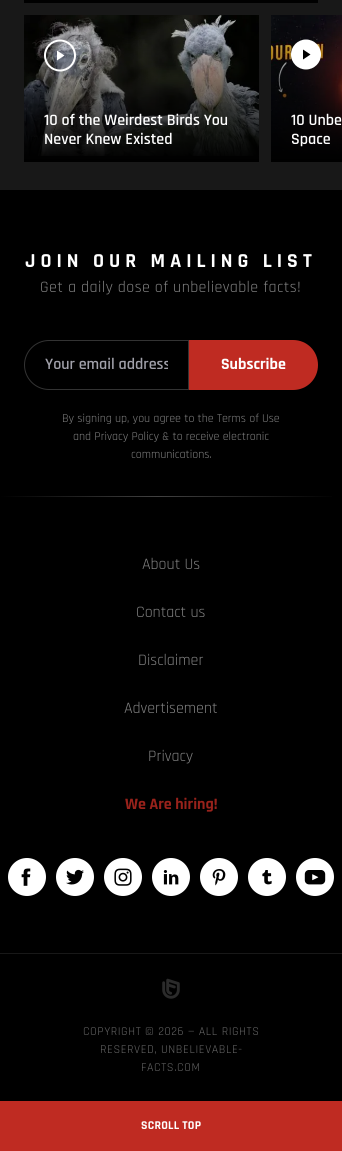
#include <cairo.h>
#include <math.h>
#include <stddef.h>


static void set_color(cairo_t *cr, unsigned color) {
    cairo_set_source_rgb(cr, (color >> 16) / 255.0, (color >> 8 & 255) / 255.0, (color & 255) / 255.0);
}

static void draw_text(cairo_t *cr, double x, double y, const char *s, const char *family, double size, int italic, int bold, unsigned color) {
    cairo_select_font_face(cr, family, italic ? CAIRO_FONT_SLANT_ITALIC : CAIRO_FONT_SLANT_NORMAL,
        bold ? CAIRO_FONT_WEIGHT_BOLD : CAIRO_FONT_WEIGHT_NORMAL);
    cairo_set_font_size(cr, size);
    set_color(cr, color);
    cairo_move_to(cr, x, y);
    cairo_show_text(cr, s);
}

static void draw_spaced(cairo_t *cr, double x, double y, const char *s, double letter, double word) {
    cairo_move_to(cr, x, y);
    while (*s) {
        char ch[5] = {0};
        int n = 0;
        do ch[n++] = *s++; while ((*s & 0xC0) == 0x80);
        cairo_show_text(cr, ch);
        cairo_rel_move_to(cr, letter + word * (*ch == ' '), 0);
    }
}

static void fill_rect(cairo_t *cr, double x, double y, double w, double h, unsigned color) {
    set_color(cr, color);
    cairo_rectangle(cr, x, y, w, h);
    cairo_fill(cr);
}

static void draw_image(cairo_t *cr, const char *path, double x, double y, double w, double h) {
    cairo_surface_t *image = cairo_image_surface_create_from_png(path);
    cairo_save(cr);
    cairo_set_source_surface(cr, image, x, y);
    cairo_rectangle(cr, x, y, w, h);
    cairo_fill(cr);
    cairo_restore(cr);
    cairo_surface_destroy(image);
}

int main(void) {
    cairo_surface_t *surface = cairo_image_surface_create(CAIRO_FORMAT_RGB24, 342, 1151);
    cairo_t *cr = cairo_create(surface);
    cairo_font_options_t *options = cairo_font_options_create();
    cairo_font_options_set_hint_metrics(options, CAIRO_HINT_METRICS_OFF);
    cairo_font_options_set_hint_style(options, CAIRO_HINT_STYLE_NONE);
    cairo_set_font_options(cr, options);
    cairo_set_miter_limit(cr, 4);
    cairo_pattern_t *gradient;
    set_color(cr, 0x000000);
    cairo_paint(cr);
    fill_rect(cr, 0, 0, 342, 190, 0x181818);
    gradient = cairo_pattern_create_linear(171, 3, 171, -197);
    cairo_pattern_add_color_stop_rgba(gradient, 0, 0, 0, 0, 1);
    cairo_pattern_add_color_stop_rgba(gradient, 1, 0.094, 0.094, 0.094, 1);
    cairo_set_source(cr, gradient);
    cairo_pattern_destroy(gradient);
    cairo_rectangle(cr, 24, 0, 294, 3);
    cairo_fill(cr);
    draw_image(cr, "assets/img1.png", 24, 15, 235, 141);
    gradient = cairo_pattern_create_linear(142, 162, 142, 15);
    cairo_pattern_add_color_stop_rgba(gradient, 0, 0, 0, 0, 1);
    cairo_pattern_add_color_stop_rgba(gradient, 1, 0, 0, 0, 0);
    cairo_set_source(cr, gradient);
    cairo_pattern_destroy(gradient);
    cairo_rectangle(cr, 24, 18, 235, 144);
    cairo_fill(cr);
    cairo_arc(cr, 60, 55.5, 15, 0, 2 * M_PI);
    set_color(cr, 0xFFFFFF);
    cairo_stroke(cr);
    cairo_set_fill_rule(cr, CAIRO_FILL_RULE_EVEN_ODD);
    cairo_new_path(cr);
    cairo_move_to(cr, 57, 50.5);
    cairo_line_to(cr, 64.5, 55.5);
    cairo_line_to(cr, 57, 60.5);
    cairo_close_path(cr);
    cairo_fill(cr);
    draw_text(cr, 44, 125, "10 of the Weirdest Birds You", "Rajdhani SemiBold", 16, 0, 0, 0xFFFFFF);
    draw_text(cr, 44, 144, "Never Knew Existed", "Rajdhani SemiBold", 16, 0, 0, 0xFFFFFF);
    draw_image(cr, "assets/img2.png", 271, 15, 71, 141);
    gradient = cairo_pattern_create_linear(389, 162, 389, 15);
    cairo_pattern_add_color_stop_rgba(gradient, 0, 0, 0, 0, 1);
    cairo_pattern_add_color_stop_rgba(gradient, 1, 0, 0, 0, 0);
    cairo_set_source(cr, gradient);
    cairo_pattern_destroy(gradient);
    cairo_rectangle(cr, 271, 26, 71, 136);
    cairo_fill(cr);
    set_color(cr, 0xFFFFFF);
    cairo_arc(cr, 306, 54.5, 15, 0, 2 * M_PI);
    cairo_fill(cr);
    set_color(cr, 0x000000);
    cairo_new_path(cr);
    cairo_move_to(cr, 303, 49.5);
    cairo_line_to(cr, 310.5, 54.5);
    cairo_line_to(cr, 303, 59.5);
    cairo_close_path(cr);
    cairo_fill(cr);
    draw_text(cr, 291, 125, "10 Unbe", "Rajdhani SemiBold", 16, 0, 0, 0xFFFFFF);
    draw_text(cr, 291, 144, "Space", "Rajdhani SemiBold", 16, 0, 0, 0xFFFFFF);
    cairo_select_font_face(cr, "Rajdhani", CAIRO_FONT_SLANT_NORMAL, CAIRO_FONT_WEIGHT_BOLD);
    cairo_set_font_size(cr, 20);
    draw_spaced(cr, 25, 267, "JOIN OUR MAILING LIST", 5, 0);
    cairo_select_font_face(cr, "Rajdhani", CAIRO_FONT_SLANT_NORMAL, CAIRO_FONT_WEIGHT_NORMAL);
    cairo_set_font_size(cr, 16);
    set_color(cr, 0x808080);
    draw_spaced(cr, 40, 292, "Get a daily dose of unbelievable facts!", 0.4, 0);
    cairo_new_path(cr);
    cairo_move_to(cr, 49, 340.5);
    cairo_line_to(cr, 188.5, 340.5);
    cairo_line_to(cr, 188.5, 389.5);
    cairo_line_to(cr, 49, 389.5);
    cairo_curve_to(cr, 35.5, 389.5, 24.5, 378.5, 24.5, 365);
    cairo_curve_to(cr, 24.5, 351.5, 35.5, 340.5, 49, 340.5);
    cairo_close_path(cr);
    set_color(cr, 0x333333);
    cairo_set_line_width(cr, 1);
    cairo_stroke(cr);
    cairo_save(cr);
    cairo_set_fill_rule(cr, CAIRO_FILL_RULE_WINDING);
    cairo_rectangle(cr, 45, 354, 123, 21);
    cairo_clip(cr);
    draw_text(cr, 45, 369, "Your email address", "Rajdhani SemiBold", 16, 0, 0, 0xA1A1AA);
    cairo_restore(cr);
    set_color(cr, 0xBF2B22);
    cairo_new_path(cr);
    cairo_move_to(cr, 189, 340);
    cairo_line_to(cr, 293, 340);
    cairo_curve_to(cr, 307, 340, 318, 351, 318, 365);
    cairo_curve_to(cr, 318, 379, 307, 390, 293, 390);
    cairo_line_to(cr, 189, 390);
    cairo_close_path(cr);
    cairo_fill(cr);
    draw_text(cr, 221, 369, "Subscribe", "Rajdhani", 16, 0, 1, 0xFFFFFF);
    draw_text(cr, 62, 422, "By signing up, you agree to the Terms of Use", "Rajdhani", 12, 0, 0, 0x808080);
    draw_text(cr, 73, 440, "and Privacy Policy & to receive electronic", "Rajdhani", 12, 0, 0, 0x808080);
    draw_text(cr, 131, 458, "communications.", "Rajdhani", 12, 0, 0, 0x808080);
    gradient = cairo_pattern_create_linear(0, 497, 342, 497);
    cairo_pattern_add_color_stop_rgba(gradient, 0, 0, 0, 0, 1);
    cairo_pattern_add_color_stop_rgba(gradient, 0.46, 0.259, 0.259, 0.259, 1);
    cairo_pattern_add_color_stop_rgba(gradient, 0.99, 0, 0, 0, 1);
    cairo_set_source(cr, gradient);
    cairo_pattern_destroy(gradient);
    cairo_rectangle(cr, 0, 496, 332, 1);
    cairo_fill(cr);
    draw_text(cr, 142, 569, "About Us", "Rajdhani", 16, 0, 0, 0x808080);
    draw_text(cr, 136, 617, "Contact us", "Rajdhani", 16, 0, 0, 0x808080);
    draw_text(cr, 138, 665, "Disclaimer", "Rajdhani", 16, 0, 0, 0x808080);
    draw_text(cr, 124, 713, "Advertisement", "Rajdhani", 16, 0, 0, 0x808080);
    draw_text(cr, 148, 761, "Privacy", "Rajdhani", 16, 0, 0, 0x808080);
    draw_text(cr, 125, 809, "We Are hiring!", "Rajdhani", 16, 0, 1, 0x99221B);
    draw_image(cr, "assets/img3.png", 8, 858, 38, 38);
    draw_image(cr, "assets/img4.png", 56, 858, 38, 38);
    draw_image(cr, "assets/img5.png", 104, 858, 38, 38);
    draw_image(cr, "assets/img6.png", 152, 858, 38, 38);
    draw_image(cr, "assets/img7.png", 200, 858, 38, 38);
    draw_image(cr, "assets/img8.png", 248, 858, 38, 38);
    draw_image(cr, "assets/img9.png", 296, 858, 38, 38);
    fill_rect(cr, 0, 953, 342, 1, 0x181818);
    draw_image(cr, "assets/img10.png", 162, 978, 18, 21);
    cairo_select_font_face(cr, "Rajdhani", CAIRO_FONT_SLANT_NORMAL, CAIRO_FONT_WEIGHT_NORMAL);
    cairo_set_font_size(cr, 12);
    set_color(cr, 0x666666);
    draw_spaced(cr, 83, 1035, "COPYRIGHT © 2026 — ALL RIGHTS", 0.6, 0);
    draw_spaced(cr, 100, 1053, "RESERVED, UNBELIEVABLE-", 0.6, 0);
    draw_spaced(cr, 141, 1071, "FACTS.COM", 0.6, 0);
    fill_rect(cr, 0, 1101, 342, 50, 0xBF2B22);
    cairo_select_font_face(cr, "Rajdhani", CAIRO_FONT_SLANT_NORMAL, CAIRO_FONT_WEIGHT_BOLD);
    set_color(cr, 0xFFFFFF);
    draw_spaced(cr, 141, 1129, "SCROLL TOP", 0.25, 0);
    cairo_surface_write_to_png(surface, "output.png");
    cairo_font_options_destroy(options);
    cairo_destroy(cr);
    cairo_surface_destroy(surface);
    return 0;
}
